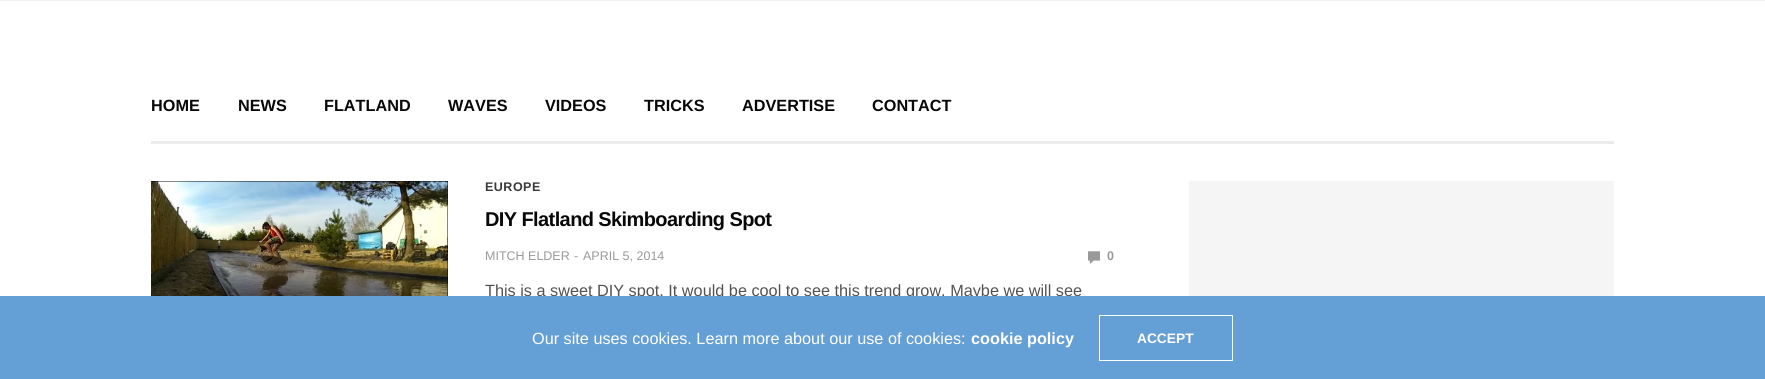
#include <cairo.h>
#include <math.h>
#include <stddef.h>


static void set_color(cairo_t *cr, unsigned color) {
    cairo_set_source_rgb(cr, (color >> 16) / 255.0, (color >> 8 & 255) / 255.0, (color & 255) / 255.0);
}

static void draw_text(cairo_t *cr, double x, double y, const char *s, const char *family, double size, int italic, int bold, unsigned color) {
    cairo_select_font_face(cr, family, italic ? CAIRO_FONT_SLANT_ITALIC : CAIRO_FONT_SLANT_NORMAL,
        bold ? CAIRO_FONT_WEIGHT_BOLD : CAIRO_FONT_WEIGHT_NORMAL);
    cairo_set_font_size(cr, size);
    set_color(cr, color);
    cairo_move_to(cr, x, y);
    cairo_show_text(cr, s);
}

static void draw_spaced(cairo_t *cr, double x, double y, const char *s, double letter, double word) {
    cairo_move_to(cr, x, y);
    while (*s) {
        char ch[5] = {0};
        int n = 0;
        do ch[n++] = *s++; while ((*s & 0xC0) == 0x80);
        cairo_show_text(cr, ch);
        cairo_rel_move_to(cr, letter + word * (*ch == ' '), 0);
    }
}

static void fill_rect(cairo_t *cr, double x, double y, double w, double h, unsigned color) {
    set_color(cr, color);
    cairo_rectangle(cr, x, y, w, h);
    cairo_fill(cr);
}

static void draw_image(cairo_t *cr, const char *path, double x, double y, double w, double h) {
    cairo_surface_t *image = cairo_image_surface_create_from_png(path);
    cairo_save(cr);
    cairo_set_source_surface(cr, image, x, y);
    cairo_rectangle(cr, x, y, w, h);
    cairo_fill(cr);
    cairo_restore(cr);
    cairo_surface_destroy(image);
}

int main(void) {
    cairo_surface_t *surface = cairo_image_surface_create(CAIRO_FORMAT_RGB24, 1765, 379);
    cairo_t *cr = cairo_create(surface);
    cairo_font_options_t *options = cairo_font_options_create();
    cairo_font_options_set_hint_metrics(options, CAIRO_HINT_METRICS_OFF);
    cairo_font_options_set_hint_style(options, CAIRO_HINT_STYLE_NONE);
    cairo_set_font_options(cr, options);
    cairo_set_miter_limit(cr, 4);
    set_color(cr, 0xFFFFFF);
    cairo_paint(cr);
    fill_rect(cr, 0, 0, 1765, 1, 0xF2F2F2);
    fill_rect(cr, 151, 141, 1463, 3, 0xEBEBEB);
    draw_text(cr, 151, 111, "HOME", "Liberation Sans", 16.25, 0, 1, 0x080808);
    draw_text(cr, 238, 111, "NEWS", "Liberation Sans", 16.25, 0, 1, 0x080808);
    draw_text(cr, 324, 111, "FLATLAND", "Liberation Sans", 16.25, 0, 1, 0x080808);
    draw_text(cr, 448, 111, "WAVES", "Liberation Sans", 16.25, 0, 1, 0x080808);
    draw_text(cr, 545, 111, "VIDEOS", "Liberation Sans", 16.25, 0, 1, 0x080808);
    draw_text(cr, 644, 111, "TRICKS", "Liberation Sans", 16.25, 0, 1, 0x080808);
    draw_text(cr, 742, 111, "ADVERTISE", "Liberation Sans", 16.25, 0, 1, 0x080808);
    draw_text(cr, 872, 111, "CONTACT", "Liberation Sans", 16.25, 0, 1, 0x080808);
    fill_rect(cr, 151, 181, 297, 115, 0x080808);
    draw_image(cr, "assets/img1.png", 151, 181, 297, 115);
    cairo_set_font_size(cr, 12.5);
    set_color(cr, 0x393939);
    draw_spaced(cr, 485, 191, "EUROPE", 0.5, 0);
    cairo_set_font_size(cr, 20);
    set_color(cr, 0x080808);
    draw_spaced(cr, 485, 226, "DIY Flatland Skimboarding Spot", -0.6, 0);
    draw_text(cr, 485, 260, "MITCH ELDER", "Liberation Sans", 12.5, 0, 0, 0x999999);
    draw_text(cr, 574, 260, "-", "Liberation Sans", 12.5, 0, 0, 0x999999);
    draw_text(cr, 583, 260, "APRIL 5, 2014", "Liberation Sans", 12.5, 0, 0, 0x999999);
    draw_image(cr, "assets/img2.png", 1088, 251, 12, 13);
    draw_text(cr, 1107, 260, "0", "Liberation Sans", 12.5, 0, 1, 0x999999);
    draw_text(cr, 485, 296, "This is a sweet DIY spot, It would be cool to see this trend grow. Maybe we will see", "Liberation Sans", 16.25, 0, 0, 0x525252);
    fill_rect(cr, 1189, 181, 425, 115, 0xF5F5F5);
    fill_rect(cr, 0, 296, 1765, 83, 0x649FD6);
    draw_text(cr, 532, 344, "Our site uses cookies. Learn more about our use of cookies:", "Liberation Sans", 16.25, 0, 0, 0xFFFFFF);
    draw_text(cr, 971, 344, "cookie policy", "Liberation Sans", 16.25, 0, 1, 0xFFFFFF);
    cairo_rectangle(cr, 1099.5, 315.5, 133, 45);
    cairo_set_line_width(cr, 1);
    cairo_stroke(cr);
    draw_text(cr, 1137, 343, "ACCEPT", "Liberation Sans", 13.75, 0, 1, 0xFFFFFF);
    cairo_surface_write_to_png(surface, "output.png");
    cairo_font_options_destroy(options);
    cairo_destroy(cr);
    cairo_surface_destroy(surface);
    return 0;
}
